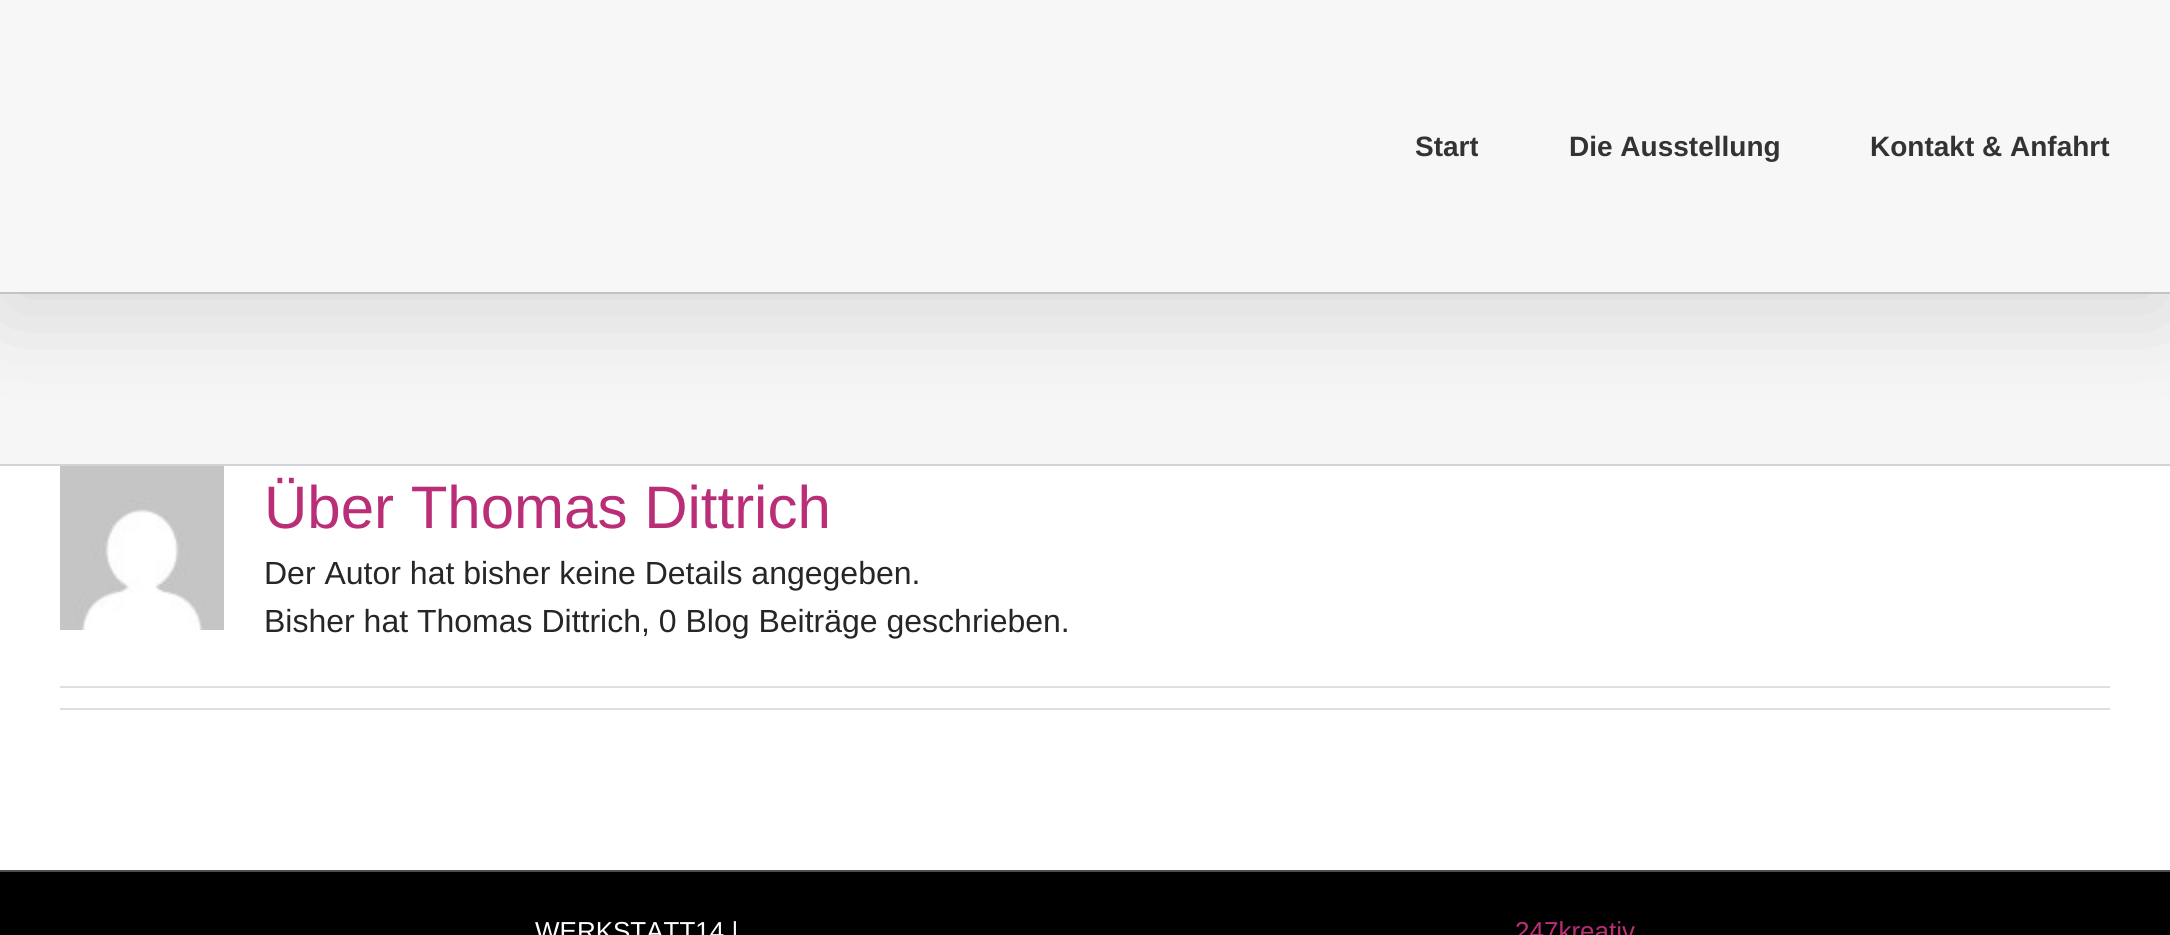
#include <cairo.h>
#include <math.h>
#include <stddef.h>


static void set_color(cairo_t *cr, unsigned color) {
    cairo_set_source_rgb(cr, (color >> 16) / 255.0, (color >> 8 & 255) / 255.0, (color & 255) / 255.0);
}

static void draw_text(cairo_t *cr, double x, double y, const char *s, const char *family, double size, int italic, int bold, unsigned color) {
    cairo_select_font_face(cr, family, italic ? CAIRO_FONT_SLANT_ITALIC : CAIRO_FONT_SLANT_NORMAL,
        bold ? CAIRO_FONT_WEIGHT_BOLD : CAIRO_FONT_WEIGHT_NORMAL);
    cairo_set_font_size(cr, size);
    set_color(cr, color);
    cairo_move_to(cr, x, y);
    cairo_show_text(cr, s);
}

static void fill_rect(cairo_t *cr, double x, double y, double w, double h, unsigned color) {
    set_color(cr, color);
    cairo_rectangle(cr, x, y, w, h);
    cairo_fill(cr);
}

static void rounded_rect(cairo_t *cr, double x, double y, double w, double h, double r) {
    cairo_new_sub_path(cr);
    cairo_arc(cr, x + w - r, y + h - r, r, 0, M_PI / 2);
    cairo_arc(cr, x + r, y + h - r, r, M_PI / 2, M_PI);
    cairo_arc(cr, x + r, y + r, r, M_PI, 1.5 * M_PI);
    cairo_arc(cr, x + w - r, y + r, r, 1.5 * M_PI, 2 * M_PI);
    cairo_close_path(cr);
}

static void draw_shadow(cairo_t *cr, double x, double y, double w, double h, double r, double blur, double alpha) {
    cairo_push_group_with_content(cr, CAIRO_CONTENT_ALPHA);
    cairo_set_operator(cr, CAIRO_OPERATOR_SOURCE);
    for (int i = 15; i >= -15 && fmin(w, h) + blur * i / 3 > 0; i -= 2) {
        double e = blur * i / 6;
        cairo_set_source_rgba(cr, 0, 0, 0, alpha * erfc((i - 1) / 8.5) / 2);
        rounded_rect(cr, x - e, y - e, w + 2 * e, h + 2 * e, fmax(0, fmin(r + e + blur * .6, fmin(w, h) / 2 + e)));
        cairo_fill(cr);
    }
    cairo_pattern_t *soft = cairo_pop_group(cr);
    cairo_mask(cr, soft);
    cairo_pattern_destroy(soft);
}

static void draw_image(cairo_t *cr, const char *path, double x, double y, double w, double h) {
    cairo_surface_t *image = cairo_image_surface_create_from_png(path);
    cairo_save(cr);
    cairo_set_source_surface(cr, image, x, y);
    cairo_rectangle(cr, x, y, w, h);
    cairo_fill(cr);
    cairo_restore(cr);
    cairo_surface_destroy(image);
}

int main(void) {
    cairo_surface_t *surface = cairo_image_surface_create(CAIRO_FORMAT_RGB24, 2170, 935);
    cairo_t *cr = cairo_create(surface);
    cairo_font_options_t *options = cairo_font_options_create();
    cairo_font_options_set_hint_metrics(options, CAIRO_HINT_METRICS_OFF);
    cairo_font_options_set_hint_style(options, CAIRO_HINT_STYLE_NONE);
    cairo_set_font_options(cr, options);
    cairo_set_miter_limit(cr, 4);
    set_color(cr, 0xFFFFFF);
    cairo_paint(cr);
    fill_rect(cr, 0, 294, 2170, 170, 0xF6F6F6);
    fill_rect(cr, 0, 292, 2170, 2, 0xD2D3D4);
    set_color(cr, 0x000000);
    draw_shadow(cr, 4, 24, 2162, 284, 0, 50, 0.14);
    fill_rect(cr, 0, 0, 2170, 292, 0xF7F7F7);
    draw_text(cr, 1415, 156, "Start", "Liberation Sans", 28, 0, 1, 0x333333);
    draw_text(cr, 1569, 156, "Die Ausstellung", "Liberation Sans", 28, 0, 1, 0x333333);
    draw_text(cr, 1870, 156, "Kontakt & Anfahrt", "Liberation Sans", 28, 0, 1, 0x333333);
    fill_rect(cr, 0, 464, 2170, 2, 0xD2D3D4);
    draw_image(cr, "assets/img1.png", 60, 466, 164, 164);
    draw_text(cr, 264, 528, "Über Thomas Dittrich", "Liberation Sans", 60, 0, 0, 0xBA2E78);
    draw_text(cr, 264, 584, "Der Autor hat bisher keine Details angegeben.", "Liberation Sans", 32, 0, 0, 0x262626);
    draw_text(cr, 264, 632, "Bisher hat Thomas Dittrich, 0 Blog Beiträge geschrieben.", "Liberation Sans", 32, 0, 0, 0x262626);
    fill_rect(cr, 60, 686, 2050, 2, 0xE0DEDE);
    fill_rect(cr, 60, 708, 2050, 2, 0xE0DEDE);
    fill_rect(cr, 0, 872, 2170, 63, 0x000000);
    fill_rect(cr, 0, 870, 2170, 2, 0x4B4C4D);
    draw_text(cr, 535, 940, "WERKSTATT14 |", "Liberation Sans", 26, 0, 0, 0xFFFFFF);
    draw_text(cr, 1515, 940, "247kreativ", "Liberation Sans", 26, 0, 0, 0xBA2E78);
    cairo_surface_write_to_png(surface, "output.png");
    cairo_font_options_destroy(options);
    cairo_destroy(cr);
    cairo_surface_destroy(surface);
    return 0;
}
